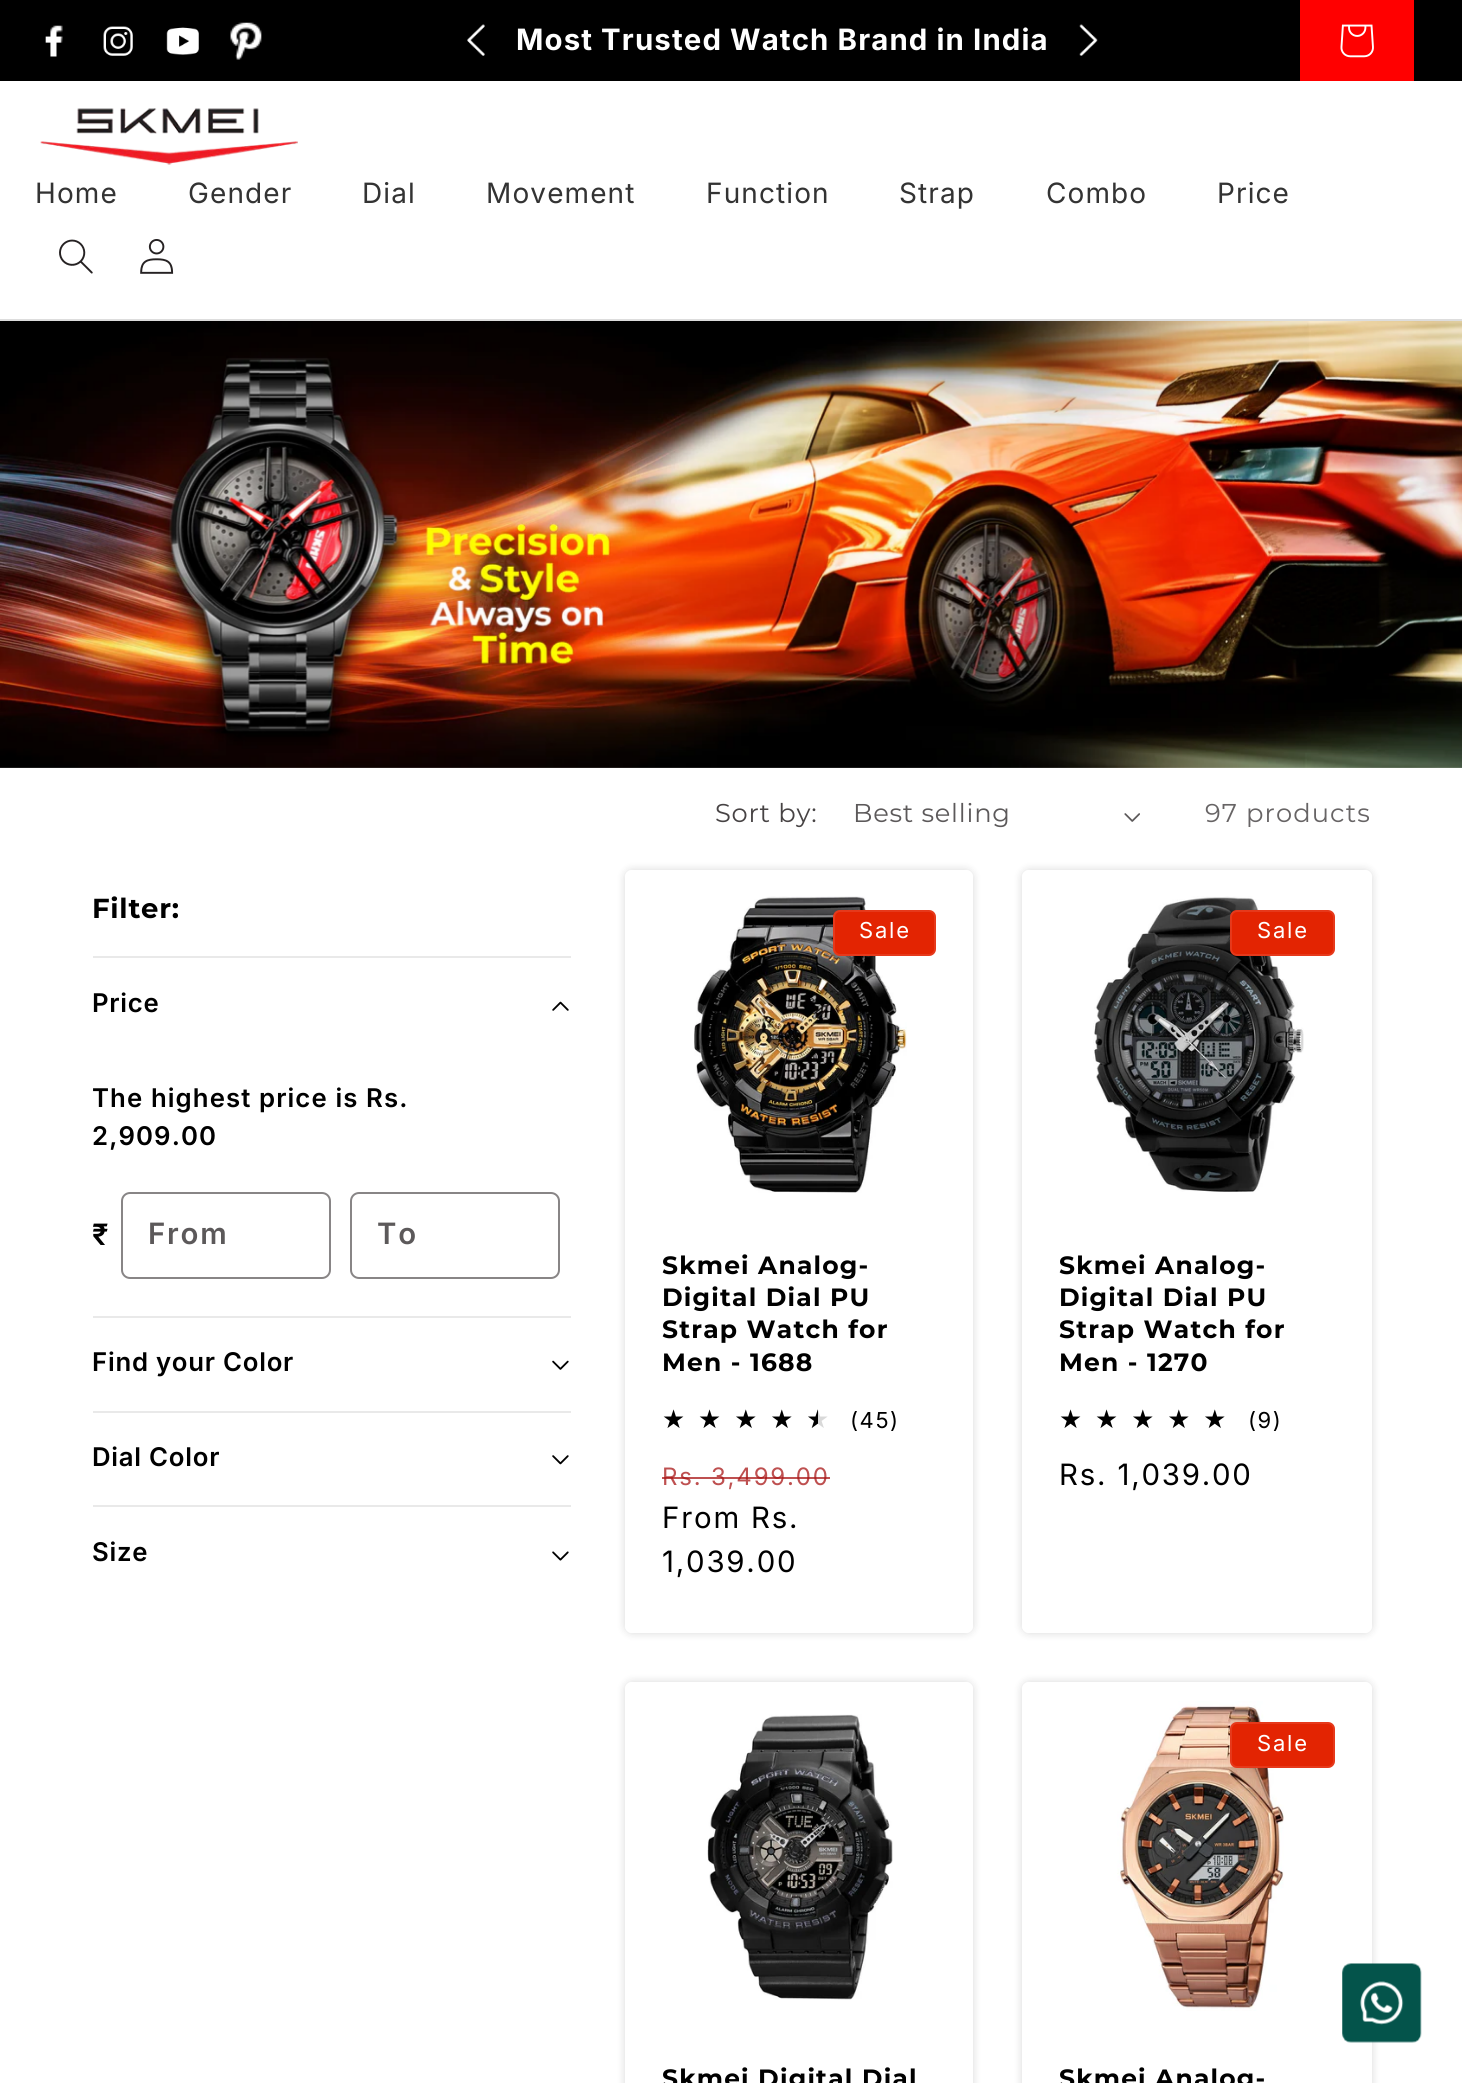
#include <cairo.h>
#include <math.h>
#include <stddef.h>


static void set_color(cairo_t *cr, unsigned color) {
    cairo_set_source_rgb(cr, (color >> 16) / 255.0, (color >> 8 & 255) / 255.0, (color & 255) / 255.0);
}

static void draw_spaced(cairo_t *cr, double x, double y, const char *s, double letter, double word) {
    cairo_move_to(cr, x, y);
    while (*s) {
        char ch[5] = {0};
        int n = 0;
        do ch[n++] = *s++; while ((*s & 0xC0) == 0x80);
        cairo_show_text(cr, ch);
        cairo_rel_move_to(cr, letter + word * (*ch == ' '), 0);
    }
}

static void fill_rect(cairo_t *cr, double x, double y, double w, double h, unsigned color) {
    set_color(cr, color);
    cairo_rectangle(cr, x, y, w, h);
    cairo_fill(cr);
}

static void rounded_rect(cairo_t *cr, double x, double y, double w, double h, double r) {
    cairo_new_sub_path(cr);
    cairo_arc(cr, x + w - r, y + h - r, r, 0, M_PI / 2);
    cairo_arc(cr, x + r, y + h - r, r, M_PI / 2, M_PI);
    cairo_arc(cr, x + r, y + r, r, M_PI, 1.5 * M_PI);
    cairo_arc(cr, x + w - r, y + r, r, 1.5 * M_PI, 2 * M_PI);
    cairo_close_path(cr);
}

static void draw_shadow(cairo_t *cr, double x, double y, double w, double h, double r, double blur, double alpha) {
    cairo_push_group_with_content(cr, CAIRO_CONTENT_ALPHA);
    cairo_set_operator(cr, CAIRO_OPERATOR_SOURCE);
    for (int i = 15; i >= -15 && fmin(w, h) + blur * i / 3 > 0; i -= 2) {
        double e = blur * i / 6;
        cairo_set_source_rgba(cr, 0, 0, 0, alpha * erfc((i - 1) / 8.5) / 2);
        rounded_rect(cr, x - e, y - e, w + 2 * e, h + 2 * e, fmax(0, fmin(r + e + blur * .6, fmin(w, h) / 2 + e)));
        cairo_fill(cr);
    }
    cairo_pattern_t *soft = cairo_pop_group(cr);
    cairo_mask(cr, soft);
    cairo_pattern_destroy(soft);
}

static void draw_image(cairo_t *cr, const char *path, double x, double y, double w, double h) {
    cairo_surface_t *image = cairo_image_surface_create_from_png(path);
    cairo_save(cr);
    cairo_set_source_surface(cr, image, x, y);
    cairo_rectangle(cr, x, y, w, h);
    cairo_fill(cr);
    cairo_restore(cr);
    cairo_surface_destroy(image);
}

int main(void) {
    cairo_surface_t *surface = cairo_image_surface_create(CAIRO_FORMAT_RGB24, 1462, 2083);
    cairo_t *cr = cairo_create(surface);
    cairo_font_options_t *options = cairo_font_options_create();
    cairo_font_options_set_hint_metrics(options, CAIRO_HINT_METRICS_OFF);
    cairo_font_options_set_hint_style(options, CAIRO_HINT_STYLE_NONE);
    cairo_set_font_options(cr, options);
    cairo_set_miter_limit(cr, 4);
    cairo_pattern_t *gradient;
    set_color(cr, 0xFFFFFF);
    cairo_paint(cr);
    fill_rect(cr, 0, 319, 1462, 2, 0xDDDDDD);
    fill_rect(cr, 0, 0, 1462, 81, 0x000000);
    draw_image(cr, "assets/img1.png", 45, 25, 18, 32);
    draw_image(cr, "assets/img2.png", 103, 26, 30, 30);
    draw_image(cr, "assets/img3.png", 166, 27, 33, 28);
    draw_image(cr, "assets/img4.png", 230, 22, 32, 38);
    draw_image(cr, "assets/img5.png", 467, 24, 18, 32);
    cairo_select_font_face(cr, "Inter", CAIRO_FONT_SLANT_NORMAL, CAIRO_FONT_WEIGHT_BOLD);
    cairo_set_font_size(cr, 29.4);
    set_color(cr, 0xFFFFFF);
    draw_spaced(cr, 516, 50, "Most Trusted Watch Brand in India", 1.1, 0);
    draw_image(cr, "assets/img6.png", 1079, 24, 19, 32);
    fill_rect(cr, 1300, 0, 114, 81, 0xFF0000);
    draw_image(cr, "assets/img7.png", 1340, 24, 34, 34);
    draw_image(cr, "assets/img8.png", 40, 108, 258, 57);
    cairo_select_font_face(cr, "Inter", CAIRO_FONT_SLANT_NORMAL, CAIRO_FONT_WEIGHT_NORMAL);
    cairo_set_font_size(cr, 28);
    set_color(cr, 0x333333);
    draw_spaced(cr, 35, 203, "Home", 1.1, 0);
    draw_spaced(cr, 188, 203, "Gender", 1.1, 0);
    draw_spaced(cr, 362, 203, "Dial", 1.1, 0);
    draw_spaced(cr, 486, 203, "Movement", 1.1, 0);
    draw_spaced(cr, 706, 203, "Function", 1.1, 0);
    draw_spaced(cr, 899, 203, "Strap", 1.1, 0);
    draw_spaced(cr, 1046, 203, "Combo", 1.1, 0);
    draw_spaced(cr, 1217, 203, "Price", 1.1, 0);
    draw_image(cr, "assets/img9.png", 59, 239, 34, 35);
    draw_image(cr, "assets/img10.png", 140, 239, 34, 35);
    draw_image(cr, "assets/img11.png", 0, 321, 1462, 447);
    cairo_select_font_face(cr, "Montserrat", CAIRO_FONT_SLANT_NORMAL, CAIRO_FONT_WEIGHT_NORMAL);
    cairo_set_font_size(cr, 25.75);
    set_color(cr, 0x474344);
    draw_spaced(cr, 715, 822, "Sort by:", 0.75, 0);
    set_color(cr, 0x5C595A);
    draw_spaced(cr, 853, 822, "Best selling", 0.75, 0);
    draw_image(cr, "assets/img12.png", 1124, 813, 16, 9);
    set_color(cr, 0x676465);
    draw_spaced(cr, 1205, 822, "97 products", 1.1, 0);
    cairo_select_font_face(cr, "Montserrat", CAIRO_FONT_SLANT_NORMAL, CAIRO_FONT_WEIGHT_BOLD);
    cairo_set_font_size(cr, 27.5);
    set_color(cr, 0x000000);
    draw_spaced(cr, 92, 918, "Filter:", 0.75, 0);
    fill_rect(cr, 93, 956, 478, 2, 0xE9E9E9);
    cairo_select_font_face(cr, "Inter SemiBold", CAIRO_FONT_SLANT_NORMAL, CAIRO_FONT_WEIGHT_NORMAL);
    cairo_set_font_size(cr, 25.75);
    set_color(cr, 0x000000);
    draw_spaced(cr, 92, 1012, "Price", 0.75, 0);
    draw_image(cr, "assets/img13.png", 552, 1001, 17, 10);
    draw_spaced(cr, 92, 1107, "The highest price is Rs.", 1.1, 0);
    draw_spaced(cr, 92, 1145, "2,909.00", 1.1, 0);
    cairo_set_font_size(cr, 29.4);
    draw_spaced(cr, 92, 1245, "₹", 1.1, 0);
    rounded_rect(cr, 122, 1193, 208, 85, 8);
    set_color(cr, 0x888586);
    cairo_stroke(cr);
    set_color(cr, 0x5C595A);
    draw_spaced(cr, 148, 1244, "From", 1.8, 0);
    rounded_rect(cr, 351, 1193, 208, 85, 8);
    set_color(cr, 0x888586);
    cairo_stroke(cr);
    set_color(cr, 0x5C595A);
    draw_spaced(cr, 377, 1244, "To", 1.8, 0);
    fill_rect(cr, 93, 1316, 478, 2, 0xE9E9E9);
    cairo_set_font_size(cr, 25.75);
    set_color(cr, 0x000000);
    draw_spaced(cr, 92, 1371, "Find your Color", 0.75, 0);
    draw_image(cr, "assets/img14.png", 552, 1360, 17, 10);
    fill_rect(cr, 93, 1411, 478, 2, 0xE9E9E9);
    set_color(cr, 0x000000);
    draw_spaced(cr, 92, 1466, "Dial Color", 0.75, 0);
    draw_image(cr, "assets/img15.png", 552, 1455, 17, 10);
    fill_rect(cr, 93, 1505, 478, 2, 0xE9E9E9);
    set_color(cr, 0x000000);
    draw_spaced(cr, 92, 1561, "Size", 0.75, 0);
    draw_image(cr, "assets/img16.png", 552, 1551, 17, 10);
    cairo_save(cr);
    cairo_set_fill_rule(cr, CAIRO_FILL_RULE_EVEN_ODD);
    cairo_new_path(cr);
    cairo_move_to(cr, 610, 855);
    cairo_line_to(cr, 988, 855);
    cairo_line_to(cr, 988, 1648);
    cairo_line_to(cr, 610, 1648);
    cairo_close_path(cr);
    cairo_move_to(cr, 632, 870);
    cairo_line_to(cr, 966, 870);
    cairo_curve_to(cr, 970, 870, 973, 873, 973, 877);
    cairo_line_to(cr, 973, 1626);
    cairo_curve_to(cr, 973, 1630, 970, 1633, 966, 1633);
    cairo_line_to(cr, 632, 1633);
    cairo_curve_to(cr, 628, 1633, 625, 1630, 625, 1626);
    cairo_line_to(cr, 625, 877);
    cairo_curve_to(cr, 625, 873, 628, 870, 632, 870);
    cairo_close_path(cr);
    cairo_clip(cr);
    set_color(cr, 0x000000);
    draw_shadow(cr, 625, 870, 348, 763, 7, 4.5, 0.15);
    cairo_restore(cr);
    draw_image(cr, "assets/img17.png", 694, 896, 213, 297);
    set_color(cr, 0xE32402);
    rounded_rect(cr, 833, 910, 103, 46, 7);
    cairo_fill(cr);
    rounded_rect(cr, 834, 911, 101, 44, 6);
    cairo_set_source_rgba(cr, 1, 1, 1, 0.1);
    cairo_stroke(cr);
    cairo_select_font_face(cr, "Inter", CAIRO_FONT_SLANT_NORMAL, CAIRO_FONT_WEIGHT_NORMAL);
    cairo_set_font_size(cr, 22);
    set_color(cr, 0xFFFFFF);
    draw_spaced(cr, 859, 938, "Sale", 1.8, 0);
    cairo_select_font_face(cr, "Montserrat", CAIRO_FONT_SLANT_NORMAL, CAIRO_FONT_WEIGHT_BOLD);
    cairo_set_font_size(cr, 25);
    set_color(cr, 0x000000);
    draw_spaced(cr, 662, 1274, "Skmei Analog-", 1.2, 0);
    draw_spaced(cr, 662, 1306, "Digital Dial PU", 1.2, 0);
    draw_spaced(cr, 662, 1338, "Strap Watch for", 1.2, 0);
    draw_spaced(cr, 662, 1371, "Men - 1688", 1.2, 0);
    cairo_select_font_face(cr, "DejaVu Sans", CAIRO_FONT_SLANT_NORMAL, CAIRO_FONT_WEIGHT_NORMAL);
    cairo_set_font_size(cr, 25.75);
    gradient = cairo_pattern_create_linear(662, 1419, 841, 1419);
    cairo_pattern_add_color_stop_rgba(gradient, 0.87, 0, 0, 0, 1);
    cairo_pattern_add_color_stop_rgba(gradient, 0.87, 0.851, 0.851, 0.851, 1);
    cairo_set_source(cr, gradient);
    cairo_pattern_destroy(gradient);
    draw_spaced(cr, 662, 1428, "★★★★★", 13, 0);
    cairo_select_font_face(cr, "Inter", CAIRO_FONT_SLANT_NORMAL, CAIRO_FONT_WEIGHT_NORMAL);
    cairo_set_font_size(cr, 22);
    set_color(cr, 0x000000);
    draw_spaced(cr, 850, 1428, "(45)", 1.5, 0);
    cairo_set_font_size(cr, 24);
    set_color(cr, 0xBE5050);
    draw_spaced(cr, 662, 1485, "Rs. 3,499.00", 1.8, 0);
    cairo_set_source_rgba(cr, 0.659, 0.086, 0.086, 0.75);
    cairo_rectangle(cr, 662, 1477, 168, 2);
    cairo_fill(cr);
    cairo_set_font_size(cr, 29.4);
    set_color(cr, 0x000000);
    draw_spaced(cr, 662, 1528, "From Rs.", 1.8, 0);
    draw_spaced(cr, 662, 1572, "1,039.00", 1.8, 0);
    cairo_save(cr);
    cairo_set_fill_rule(cr, CAIRO_FILL_RULE_EVEN_ODD);
    cairo_new_path(cr);
    cairo_move_to(cr, 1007, 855);
    cairo_line_to(cr, 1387, 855);
    cairo_line_to(cr, 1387, 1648);
    cairo_line_to(cr, 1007, 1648);
    cairo_close_path(cr);
    cairo_move_to(cr, 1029, 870);
    cairo_line_to(cr, 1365, 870);
    cairo_curve_to(cr, 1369, 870, 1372, 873, 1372, 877);
    cairo_line_to(cr, 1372, 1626);
    cairo_curve_to(cr, 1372, 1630, 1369, 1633, 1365, 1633);
    cairo_line_to(cr, 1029, 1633);
    cairo_curve_to(cr, 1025, 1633, 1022, 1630, 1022, 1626);
    cairo_line_to(cr, 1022, 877);
    cairo_curve_to(cr, 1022, 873, 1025, 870, 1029, 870);
    cairo_close_path(cr);
    cairo_clip(cr);
    set_color(cr, 0x000000);
    draw_shadow(cr, 1022, 870, 350, 763, 7, 4.5, 0.15);
    cairo_restore(cr);
    draw_image(cr, "assets/img18.png", 1093, 896, 211, 296);
    set_color(cr, 0xE32402);
    rounded_rect(cr, 1230, 910, 105, 46, 7);
    cairo_fill(cr);
    rounded_rect(cr, 1231, 911, 103, 44, 6);
    cairo_set_source_rgba(cr, 1, 1, 1, 0.1);
    cairo_stroke(cr);
    cairo_set_font_size(cr, 22);
    set_color(cr, 0xFFFFFF);
    draw_spaced(cr, 1257, 938, "Sale", 1.8, 0);
    cairo_select_font_face(cr, "Montserrat", CAIRO_FONT_SLANT_NORMAL, CAIRO_FONT_WEIGHT_BOLD);
    cairo_set_font_size(cr, 25);
    set_color(cr, 0x000000);
    draw_spaced(cr, 1059, 1274, "Skmei Analog-", 1.2, 0);
    draw_spaced(cr, 1059, 1306, "Digital Dial PU", 1.2, 0);
    draw_spaced(cr, 1059, 1338, "Strap Watch for", 1.2, 0);
    draw_spaced(cr, 1059, 1371, "Men - 1270", 1.2, 0);
    cairo_select_font_face(cr, "DejaVu Sans", CAIRO_FONT_SLANT_NORMAL, CAIRO_FONT_WEIGHT_NORMAL);
    cairo_set_font_size(cr, 25.75);
    gradient = cairo_pattern_create_linear(1059, 1419, 1239, 1419);
    cairo_pattern_add_color_stop_rgba(gradient, 0.93, 0, 0, 0, 1);
    cairo_pattern_add_color_stop_rgba(gradient, 0.93, 0.851, 0.851, 0.851, 1);
    cairo_set_source(cr, gradient);
    cairo_pattern_destroy(gradient);
    draw_spaced(cr, 1059, 1428, "★★★★★", 13, 0);
    cairo_select_font_face(cr, "Inter", CAIRO_FONT_SLANT_NORMAL, CAIRO_FONT_WEIGHT_NORMAL);
    cairo_set_font_size(cr, 22);
    set_color(cr, 0x000000);
    draw_spaced(cr, 1248, 1428, "(9)", 1.5, 0);
    cairo_set_font_size(cr, 29.4);
    draw_spaced(cr, 1059, 1485, "Rs. 1,039.00", 1.8, 0);
    cairo_save(cr);
    cairo_set_fill_rule(cr, CAIRO_FILL_RULE_EVEN_ODD);
    cairo_new_path(cr);
    cairo_move_to(cr, 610, 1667);
    cairo_line_to(cr, 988, 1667);
    cairo_line_to(cr, 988, 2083);
    cairo_line_to(cr, 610, 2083);
    cairo_close_path(cr);
    cairo_move_to(cr, 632, 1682);
    cairo_line_to(cr, 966, 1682);
    cairo_curve_to(cr, 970, 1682, 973, 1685, 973, 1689);
    cairo_line_to(cr, 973, 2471);
    cairo_curve_to(cr, 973, 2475, 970, 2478, 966, 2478);
    cairo_line_to(cr, 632, 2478);
    cairo_curve_to(cr, 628, 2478, 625, 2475, 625, 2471);
    cairo_line_to(cr, 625, 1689);
    cairo_curve_to(cr, 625, 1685, 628, 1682, 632, 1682);
    cairo_close_path(cr);
    cairo_clip(cr);
    set_color(cr, 0x000000);
    draw_shadow(cr, 625, 1682, 348, 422, 7, 4.5, 0.15);
    cairo_restore(cr);
    draw_image(cr, "assets/img19.png", 707, 1714, 186, 286);
    cairo_select_font_face(cr, "Montserrat", CAIRO_FONT_SLANT_NORMAL, CAIRO_FONT_WEIGHT_BOLD);
    cairo_set_font_size(cr, 25);
    draw_spaced(cr, 662, 2087, "Skmei Digital Dial", 1.2, 0);
    cairo_save(cr);
    cairo_set_fill_rule(cr, CAIRO_FILL_RULE_EVEN_ODD);
    cairo_new_path(cr);
    cairo_move_to(cr, 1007, 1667);
    cairo_line_to(cr, 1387, 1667);
    cairo_line_to(cr, 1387, 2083);
    cairo_line_to(cr, 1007, 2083);
    cairo_close_path(cr);
    cairo_move_to(cr, 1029, 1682);
    cairo_line_to(cr, 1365, 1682);
    cairo_curve_to(cr, 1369, 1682, 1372, 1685, 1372, 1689);
    cairo_line_to(cr, 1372, 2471);
    cairo_curve_to(cr, 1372, 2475, 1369, 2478, 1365, 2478);
    cairo_line_to(cr, 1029, 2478);
    cairo_curve_to(cr, 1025, 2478, 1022, 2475, 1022, 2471);
    cairo_line_to(cr, 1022, 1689);
    cairo_curve_to(cr, 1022, 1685, 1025, 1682, 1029, 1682);
    cairo_close_path(cr);
    cairo_clip(cr);
    set_color(cr, 0x000000);
    draw_shadow(cr, 1022, 1682, 350, 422, 7, 4.5, 0.15);
    cairo_restore(cr);
    draw_image(cr, "assets/img20.png", 1117, 1701, 167, 310);
    set_color(cr, 0xE32402);
    rounded_rect(cr, 1230, 1722, 105, 46, 7);
    cairo_fill(cr);
    rounded_rect(cr, 1231, 1723, 103, 44, 6);
    cairo_set_source_rgba(cr, 1, 1, 1, 0.1);
    cairo_stroke(cr);
    cairo_select_font_face(cr, "Inter", CAIRO_FONT_SLANT_NORMAL, CAIRO_FONT_WEIGHT_NORMAL);
    cairo_set_font_size(cr, 22);
    set_color(cr, 0xFFFFFF);
    draw_spaced(cr, 1257, 1751, "Sale", 1.8, 0);
    cairo_select_font_face(cr, "Montserrat", CAIRO_FONT_SLANT_NORMAL, CAIRO_FONT_WEIGHT_BOLD);
    cairo_set_font_size(cr, 25);
    set_color(cr, 0x000000);
    draw_spaced(cr, 1059, 2087, "Skmei Analog-", 1.2, 0);
    draw_image(cr, "assets/img21.png", 1342, 1963, 80, 80);
    cairo_surface_write_to_png(surface, "output.png");
    cairo_font_options_destroy(options);
    cairo_destroy(cr);
    cairo_surface_destroy(surface);
    return 0;
}
